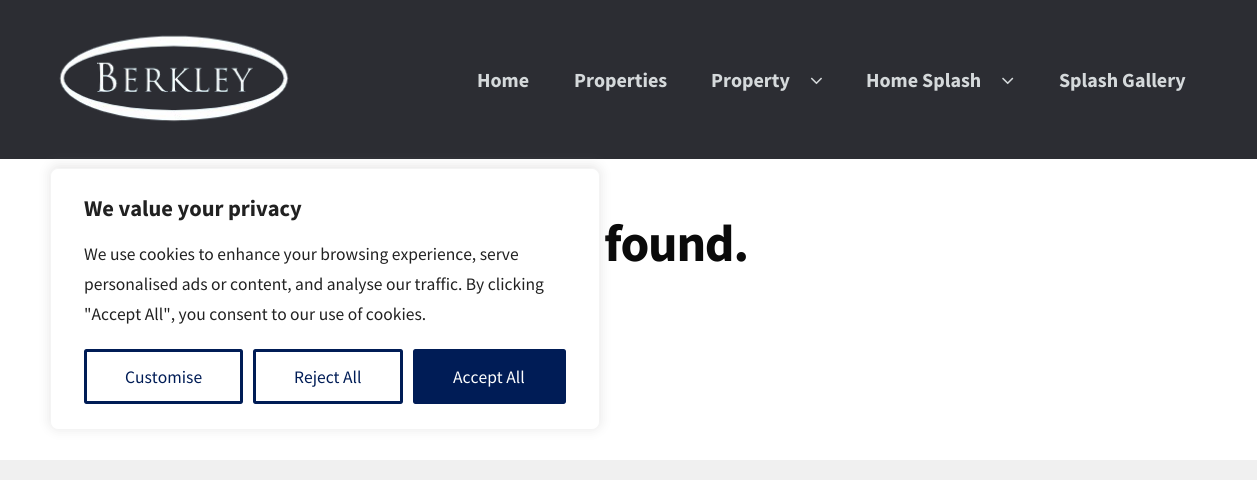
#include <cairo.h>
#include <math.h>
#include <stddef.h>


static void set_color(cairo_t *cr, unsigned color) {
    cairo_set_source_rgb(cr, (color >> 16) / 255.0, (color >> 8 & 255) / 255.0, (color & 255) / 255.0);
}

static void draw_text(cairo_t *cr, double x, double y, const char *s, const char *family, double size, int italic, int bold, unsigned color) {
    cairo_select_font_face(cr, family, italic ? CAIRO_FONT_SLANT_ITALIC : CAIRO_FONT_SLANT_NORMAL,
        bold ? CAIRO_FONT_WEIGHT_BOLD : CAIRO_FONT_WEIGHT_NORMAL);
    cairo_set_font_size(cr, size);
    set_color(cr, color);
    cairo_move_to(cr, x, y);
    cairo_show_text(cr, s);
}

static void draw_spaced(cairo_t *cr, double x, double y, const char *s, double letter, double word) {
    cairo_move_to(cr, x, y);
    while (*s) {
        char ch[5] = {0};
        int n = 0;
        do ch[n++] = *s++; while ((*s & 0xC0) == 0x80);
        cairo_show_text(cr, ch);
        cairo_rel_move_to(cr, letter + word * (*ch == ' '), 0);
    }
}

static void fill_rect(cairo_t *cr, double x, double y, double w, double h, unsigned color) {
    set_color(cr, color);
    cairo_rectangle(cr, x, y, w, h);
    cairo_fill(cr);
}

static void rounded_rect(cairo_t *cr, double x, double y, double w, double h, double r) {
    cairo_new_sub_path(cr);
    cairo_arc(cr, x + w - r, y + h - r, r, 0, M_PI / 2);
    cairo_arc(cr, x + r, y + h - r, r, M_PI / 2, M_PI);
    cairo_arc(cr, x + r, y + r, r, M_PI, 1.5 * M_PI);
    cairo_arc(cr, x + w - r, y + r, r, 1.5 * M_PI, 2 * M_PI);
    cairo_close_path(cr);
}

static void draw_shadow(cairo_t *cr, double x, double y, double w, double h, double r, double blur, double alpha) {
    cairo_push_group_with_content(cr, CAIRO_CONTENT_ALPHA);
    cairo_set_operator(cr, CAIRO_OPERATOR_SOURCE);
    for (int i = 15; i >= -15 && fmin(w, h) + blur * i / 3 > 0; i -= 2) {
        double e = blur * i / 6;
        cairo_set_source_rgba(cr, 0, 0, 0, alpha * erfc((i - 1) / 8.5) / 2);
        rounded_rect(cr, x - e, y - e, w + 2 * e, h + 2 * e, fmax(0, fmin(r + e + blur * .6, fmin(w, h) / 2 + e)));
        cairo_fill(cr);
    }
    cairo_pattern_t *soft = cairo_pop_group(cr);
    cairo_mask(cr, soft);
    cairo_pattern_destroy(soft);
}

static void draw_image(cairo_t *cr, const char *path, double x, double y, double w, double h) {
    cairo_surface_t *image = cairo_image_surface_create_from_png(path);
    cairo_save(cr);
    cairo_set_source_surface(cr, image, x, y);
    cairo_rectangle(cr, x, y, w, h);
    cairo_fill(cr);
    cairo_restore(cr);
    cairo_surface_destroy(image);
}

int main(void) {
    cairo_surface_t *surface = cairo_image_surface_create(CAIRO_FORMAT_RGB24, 1257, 480);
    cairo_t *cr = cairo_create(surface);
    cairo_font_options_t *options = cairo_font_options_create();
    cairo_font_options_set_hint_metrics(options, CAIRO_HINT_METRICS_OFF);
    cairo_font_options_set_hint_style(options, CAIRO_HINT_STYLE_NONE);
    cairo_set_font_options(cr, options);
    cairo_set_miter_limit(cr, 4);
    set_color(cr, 0xFFFFFF);
    cairo_paint(cr);
    fill_rect(cr, 0, 0, 1257, 159, 0x2C2D33);
    draw_image(cr, "assets/img1.png", 59, 35, 230, 87);
    draw_text(cr, 477, 87, "Home", "Source Sans Pro", 20, 0, 1, 0xD5D9DB);
    draw_text(cr, 574, 87, "Properties", "Source Sans Pro", 20, 0, 1, 0xD5D9DB);
    draw_text(cr, 711, 87, "Property", "Source Sans Pro", 20, 0, 1, 0xD5D9DB);
    draw_image(cr, "assets/img2.png", 810, 77, 12, 8);
    draw_text(cr, 866, 87, "Home Splash", "Source Sans Pro", 20, 0, 1, 0xD5D9DB);
    draw_image(cr, "assets/img3.png", 1002, 77, 12, 8);
    draw_text(cr, 1059, 87, "Splash Gallery", "Source Sans Pro", 20, 0, 1, 0xD5D9DB);
    cairo_set_font_size(cr, 52);
    set_color(cr, 0x0A0A0A);
    draw_spaced(cr, 604, 261, "found.", -1.25, 0);
    fill_rect(cr, 0, 460, 1257, 20, 0xF0F0F0);
    set_color(cr, 0xACABAB);
    draw_shadow(cr, 50, 166, 550, 263, 8, 6, 0.3);
    set_color(cr, 0xFFFFFF);
    rounded_rect(cr, 50.5, 168.5, 549, 261, 7.5);
    cairo_fill_preserve(cr);
    set_color(cr, 0xF4F4F4);
    cairo_set_line_width(cr, 1);
    cairo_stroke(cr);
    draw_text(cr, 84, 216, "We value your privacy", "Source Sans Pro", 22.5, 0, 1, 0x212121);
    draw_text(cr, 84, 260, "We use cookies to enhance your browsing experience, serve", "Source Sans Pro", 17.5, 0, 0, 0x212121);
    draw_text(cr, 84, 290, "personalised ads or content, and analyse our traffic. By clicking", "Source Sans Pro", 17.5, 0, 0, 0x212121);
    draw_text(cr, 84, 320, "\"Accept All\", you consent to our use of cookies.", "Source Sans Pro", 17.5, 0, 0, 0x212121);
    rounded_rect(cr, 85.5, 350.5, 156, 52, 1);
    set_color(cr, 0x001C56);
    cairo_set_line_width(cr, 3);
    cairo_stroke(cr);
    draw_text(cr, 125, 383, "Customise", "Source Sans Pro", 17.5, 0, 0, 0x001C56);
    rounded_rect(cr, 254.5, 350.5, 147, 52, 1);
    cairo_stroke(cr);
    draw_text(cr, 294, 383, "Reject All", "Source Sans Pro", 17.5, 0, 0, 0x001C56);
    rounded_rect(cr, 414.5, 350.5, 150, 52, 1);
    cairo_fill_preserve(cr);
    cairo_stroke(cr);
    draw_text(cr, 453, 383, "Accept All", "Source Sans Pro", 17.5, 0, 0, 0xFFFFFF);
    cairo_surface_write_to_png(surface, "output.png");
    cairo_font_options_destroy(options);
    cairo_destroy(cr);
    cairo_surface_destroy(surface);
    return 0;
}
